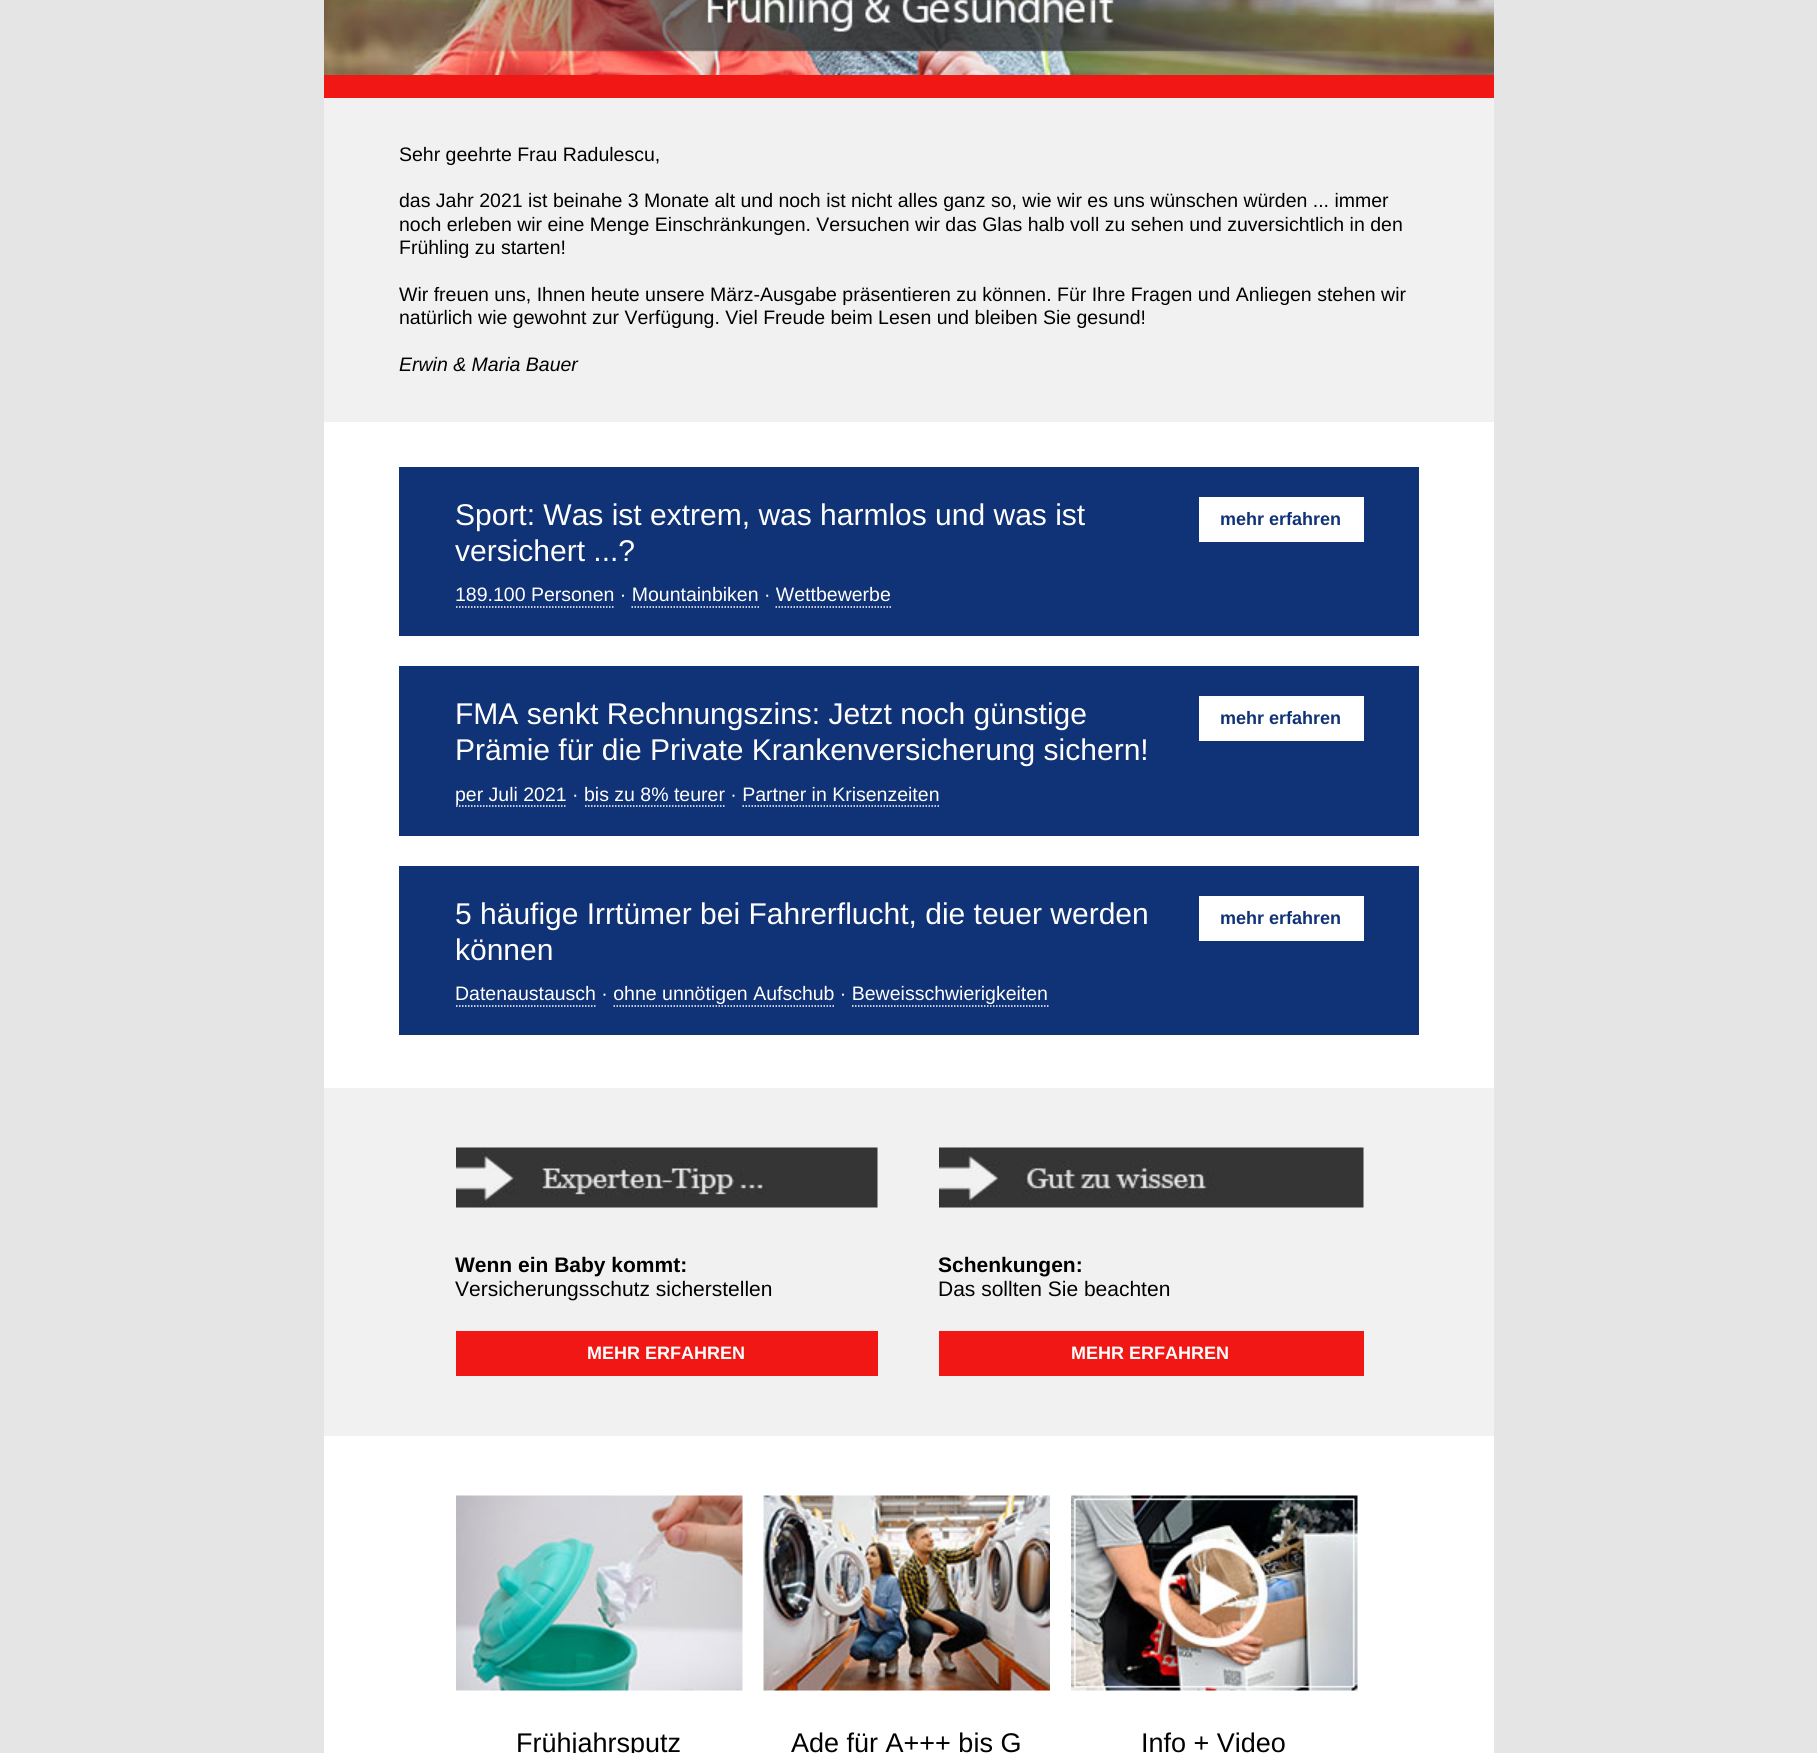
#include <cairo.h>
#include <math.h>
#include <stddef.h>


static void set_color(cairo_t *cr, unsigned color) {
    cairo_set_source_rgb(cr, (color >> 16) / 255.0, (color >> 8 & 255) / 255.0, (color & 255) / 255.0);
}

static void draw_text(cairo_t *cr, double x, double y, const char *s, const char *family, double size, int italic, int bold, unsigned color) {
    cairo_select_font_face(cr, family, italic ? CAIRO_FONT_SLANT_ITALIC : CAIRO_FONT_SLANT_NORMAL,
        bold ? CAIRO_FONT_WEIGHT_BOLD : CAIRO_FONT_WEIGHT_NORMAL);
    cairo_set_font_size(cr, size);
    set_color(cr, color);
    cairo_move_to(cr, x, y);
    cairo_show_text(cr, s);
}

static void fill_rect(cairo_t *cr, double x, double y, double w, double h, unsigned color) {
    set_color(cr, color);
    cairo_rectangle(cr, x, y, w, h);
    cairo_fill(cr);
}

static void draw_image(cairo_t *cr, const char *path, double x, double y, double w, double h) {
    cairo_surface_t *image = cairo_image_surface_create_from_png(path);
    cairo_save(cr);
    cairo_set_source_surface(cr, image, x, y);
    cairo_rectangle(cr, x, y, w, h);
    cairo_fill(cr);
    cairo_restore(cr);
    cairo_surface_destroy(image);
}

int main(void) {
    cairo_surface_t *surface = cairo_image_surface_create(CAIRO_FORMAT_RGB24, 1817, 1753);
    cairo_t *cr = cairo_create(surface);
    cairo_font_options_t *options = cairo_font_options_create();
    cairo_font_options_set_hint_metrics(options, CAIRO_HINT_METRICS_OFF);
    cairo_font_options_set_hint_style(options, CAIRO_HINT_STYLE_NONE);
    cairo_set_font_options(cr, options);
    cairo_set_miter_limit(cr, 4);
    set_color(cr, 0xE6E5E5);
    cairo_paint(cr);
    draw_image(cr, "assets/img1.png", 324, 0, 1170, 75);
    fill_rect(cr, 324, 75, 1170, 23, 0xF01714);
    fill_rect(cr, 324, 422, 1170, 666, 0xFFFFFF);
    fill_rect(cr, 324, 98, 1170, 324, 0xF1F1F1);
    draw_text(cr, 399, 161, "Sehr geehrte Frau Radulescu,", "Liberation Sans", 19.5, 0, 0, 0x000000);
    draw_text(cr, 399, 207, "das Jahr 2021 ist beinahe 3 Monate alt und noch ist nicht alles ganz so, wie wir es uns wünschen würden ... immer", "Liberation Sans", 19.5, 0, 0, 0x000000);
    draw_text(cr, 399, 231, "noch erleben wir eine Menge Einschränkungen. Versuchen wir das Glas halb voll zu sehen und zuversichtlich in den", "Liberation Sans", 19.5, 0, 0, 0x000000);
    draw_text(cr, 399, 254, "Frühling zu starten!", "Liberation Sans", 19.5, 0, 0, 0x000000);
    draw_text(cr, 399, 301, "Wir freuen uns, Ihnen heute unsere März-Ausgabe präsentieren zu können. Für Ihre Fragen und Anliegen stehen wir", "Liberation Sans", 19.5, 0, 0, 0x000000);
    draw_text(cr, 399, 324, "natürlich wie gewohnt zur Verfügung. Viel Freude beim Lesen und bleiben Sie gesund!", "Liberation Sans", 19.5, 0, 0, 0x000000);
    draw_text(cr, 399, 371, "Erwin & Maria Bauer", "Liberation Sans", 19.5, 1, 0, 0x000000);
    fill_rect(cr, 399, 467, 1020, 169, 0x103276);
    draw_text(cr, 455, 525, "Sport: Was ist extrem, was harmlos und was ist", "Liberation Sans", 30, 0, 0, 0xFFFFFF);
    draw_text(cr, 455, 561, "versichert ...?", "Liberation Sans", 30, 0, 0, 0xFFFFFF);
    draw_text(cr, 455, 601, "189.100 Personen · Mountainbiken · Wettbewerbe", "Liberation Sans", 19.5, 0, 0, 0xFFFFFF);
    cairo_new_path(cr);
    cairo_move_to(cr, 456, 607);
    cairo_line_to(cr, 615, 607);
    cairo_set_line_width(cr, 1.5);
    cairo_set_dash(cr, (double[]){1.5, 1.5}, 2, 0);
    cairo_stroke(cr);
    cairo_new_path(cr);
    cairo_move_to(cr, 631.5, 607);
    cairo_line_to(cr, 759, 607);
    cairo_stroke(cr);
    cairo_new_path(cr);
    cairo_move_to(cr, 775.5, 607);
    cairo_line_to(cr, 891, 607);
    cairo_stroke(cr);
    fill_rect(cr, 1199, 497, 165, 45, 0xFFFFFF);
    draw_text(cr, 1220, 525, "mehr erfahren", "Liberation Sans", 18, 0, 1, 0x103276);
    fill_rect(cr, 399, 666, 1020, 170, 0x103276);
    draw_text(cr, 455, 724, "FMA senkt Rechnungszins: Jetzt noch günstige", "Liberation Sans", 30, 0, 0, 0xFFFFFF);
    draw_text(cr, 455, 760, "Prämie für die Private Krankenversicherung sichern!", "Liberation Sans", 30, 0, 0, 0xFFFFFF);
    cairo_new_path(cr);
    cairo_move_to(cr, 456, 806);
    cairo_line_to(cr, 567, 806);
    cairo_stroke(cr);
    draw_text(cr, 455, 801, "per Juli 2021 · bis zu 8% teurer · Partner in Krisenzeiten", "Liberation Sans", 19.5, 0, 0, 0xFFFFFF);
    cairo_new_path(cr);
    cairo_move_to(cr, 585, 806);
    cairo_line_to(cr, 724.5, 806);
    cairo_stroke(cr);
    cairo_new_path(cr);
    cairo_move_to(cr, 742.5, 806);
    cairo_line_to(cr, 940.5, 806);
    cairo_stroke(cr);
    fill_rect(cr, 1199, 696, 165, 45, 0xFFFFFF);
    draw_text(cr, 1220, 724, "mehr erfahren", "Liberation Sans", 18, 0, 1, 0x103276);
    fill_rect(cr, 399, 866, 1020, 169, 0x103276);
    draw_text(cr, 455, 924, "5 häufige Irrtümer bei Fahrerflucht, die teuer werden", "Liberation Sans", 30, 0, 0, 0xFFFFFF);
    draw_text(cr, 455, 960, "können", "Liberation Sans", 30, 0, 0, 0xFFFFFF);
    draw_text(cr, 455, 1000, "Datenaustausch · ohne unnötigen Aufschub · Beweisschwierigkeiten", "Liberation Sans", 19.5, 0, 0, 0xFFFFFF);
    cairo_new_path(cr);
    cairo_move_to(cr, 456, 1006);
    cairo_line_to(cr, 595.5, 1006);
    cairo_stroke(cr);
    cairo_new_path(cr);
    cairo_move_to(cr, 613.5, 1006);
    cairo_line_to(cr, 834, 1006);
    cairo_stroke(cr);
    cairo_new_path(cr);
    cairo_move_to(cr, 852, 1006);
    cairo_line_to(cr, 1048.5, 1006);
    cairo_stroke(cr);
    fill_rect(cr, 1199, 896, 165, 45, 0xFFFFFF);
    draw_text(cr, 1220, 924, "mehr erfahren", "Liberation Sans", 18, 0, 1, 0x103276);
    fill_rect(cr, 324, 1088, 1170, 348, 0xF1F1F1);
    draw_image(cr, "assets/img2.png", 456, 1147, 422, 61);
    draw_text(cr, 455, 1272, "Wenn ein Baby kommt:", "Liberation Sans", 21, 0, 1, 0x000000);
    draw_text(cr, 455, 1296, "Versicherungsschutz sicherstellen", "Liberation Sans", 21, 0, 0, 0x000000);
    fill_rect(cr, 456, 1331, 422, 45, 0xF01714);
    draw_text(cr, 587, 1359, "MEHR ERFAHREN", "Liberation Sans", 18, 0, 1, 0xFFFFFF);
    draw_image(cr, "assets/img3.png", 939, 1147, 425, 61);
    draw_text(cr, 938, 1272, "Schenkungen:", "Liberation Sans", 21, 0, 1, 0x000000);
    draw_text(cr, 938, 1296, "Das sollten Sie beachten", "Liberation Sans", 21, 0, 0, 0x000000);
    fill_rect(cr, 939, 1331, 425, 45, 0xF01714);
    draw_text(cr, 1071, 1359, "MEHR ERFAHREN", "Liberation Sans", 18, 0, 1, 0xFFFFFF);
    fill_rect(cr, 324, 1436, 1170, 317, 0xFFFFFF);
    draw_image(cr, "assets/img4.png", 456, 1495, 287, 196);
    draw_text(cr, 516, 1752, "Frühjahrsputz", "Liberation Sans", 27, 0, 0, 0x000000);
    draw_image(cr, "assets/img5.png", 763, 1495, 287, 196);
    draw_text(cr, 791, 1752, "Ade für A+++ bis G", "Liberation Sans", 27, 0, 0, 0x000000);
    draw_image(cr, "assets/img6.png", 1071, 1495, 287, 196);
    draw_text(cr, 1141, 1752, "Info + Video", "Liberation Sans", 27, 0, 0, 0x000000);
    cairo_surface_write_to_png(surface, "output.png");
    cairo_font_options_destroy(options);
    cairo_destroy(cr);
    cairo_surface_destroy(surface);
    return 0;
}
